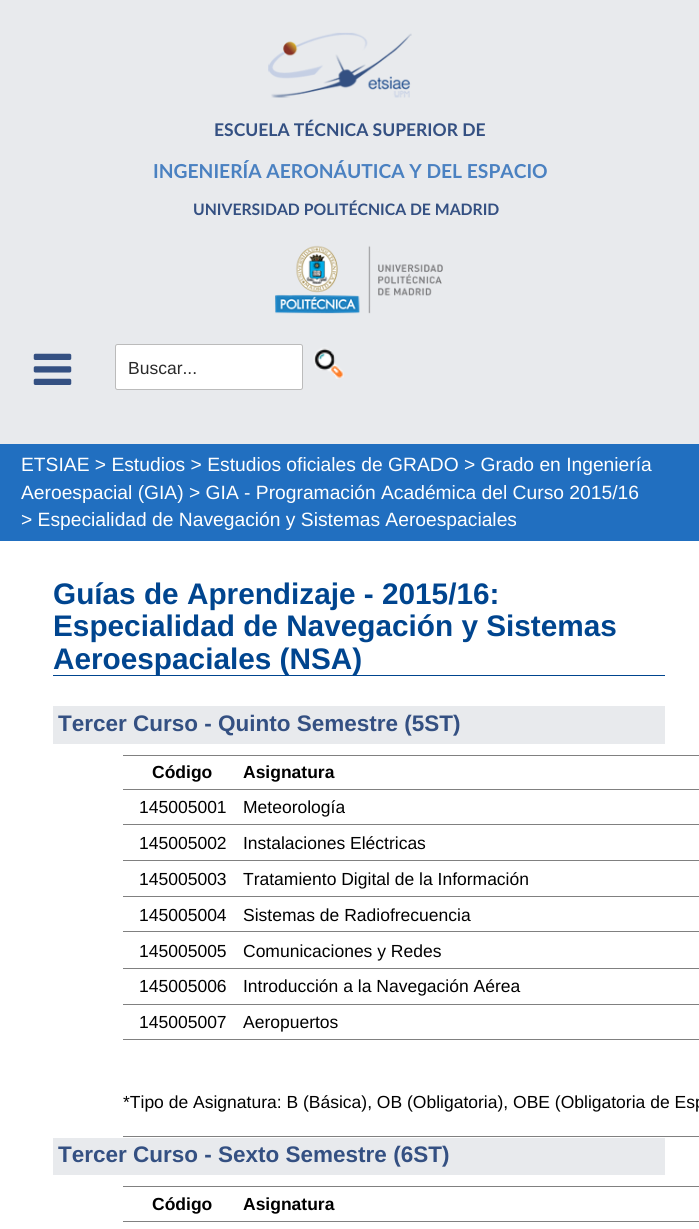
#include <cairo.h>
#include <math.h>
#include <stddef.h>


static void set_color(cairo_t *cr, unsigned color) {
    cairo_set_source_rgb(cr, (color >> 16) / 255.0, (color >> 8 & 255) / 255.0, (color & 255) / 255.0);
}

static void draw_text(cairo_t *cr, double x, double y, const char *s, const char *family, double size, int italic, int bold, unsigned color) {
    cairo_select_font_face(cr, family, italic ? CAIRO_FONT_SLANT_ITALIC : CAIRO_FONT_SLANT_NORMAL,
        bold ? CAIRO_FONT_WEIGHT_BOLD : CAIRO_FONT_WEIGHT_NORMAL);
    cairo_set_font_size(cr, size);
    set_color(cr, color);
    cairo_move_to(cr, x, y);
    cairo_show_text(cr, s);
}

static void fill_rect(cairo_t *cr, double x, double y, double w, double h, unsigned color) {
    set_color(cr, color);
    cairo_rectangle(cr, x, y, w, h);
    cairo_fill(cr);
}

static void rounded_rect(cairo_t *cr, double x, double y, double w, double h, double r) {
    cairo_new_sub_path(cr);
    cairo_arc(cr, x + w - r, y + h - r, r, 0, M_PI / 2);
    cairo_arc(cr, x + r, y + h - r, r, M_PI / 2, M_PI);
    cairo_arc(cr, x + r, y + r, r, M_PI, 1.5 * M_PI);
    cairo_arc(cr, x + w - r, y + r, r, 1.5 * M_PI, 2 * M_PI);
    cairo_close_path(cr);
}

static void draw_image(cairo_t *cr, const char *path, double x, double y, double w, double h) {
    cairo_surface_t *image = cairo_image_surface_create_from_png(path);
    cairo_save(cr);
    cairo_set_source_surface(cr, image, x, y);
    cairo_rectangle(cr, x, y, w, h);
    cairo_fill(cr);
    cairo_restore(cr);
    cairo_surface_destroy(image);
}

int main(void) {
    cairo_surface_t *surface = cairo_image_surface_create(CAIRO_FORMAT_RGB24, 699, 1229);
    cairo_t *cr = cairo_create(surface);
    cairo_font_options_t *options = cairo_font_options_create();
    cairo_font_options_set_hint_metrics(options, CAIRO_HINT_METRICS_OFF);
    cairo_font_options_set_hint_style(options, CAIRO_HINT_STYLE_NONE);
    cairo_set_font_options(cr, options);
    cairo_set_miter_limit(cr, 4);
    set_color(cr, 0xFFFFFF);
    cairo_paint(cr);
    fill_rect(cr, 0, 0, 699, 444, 0xE8EAED);
    draw_image(cr, "assets/img1.png", 268, 32, 144, 66);
    draw_text(cr, 214, 136, "ESCUELA TÉCNICA SUPERIOR DE", "Lato", 17.5, 0, 1, 0x345082);
    draw_text(cr, 153, 178, "INGENIERÍA AERONÁUTICA Y DEL ESPACIO", "Lato", 19.25, 0, 1, 0x4A81C1);
    draw_text(cr, 193, 215, "UNIVERSIDAD POLITÉCNICA DE MADRID", "Lato", 15.75, 0, 1, 0x345082);
    draw_image(cr, "assets/img2.png", 275, 245, 168, 69);
    draw_image(cr, "assets/img3.png", 33, 353, 39, 32);
    set_color(cr, 0xFFFFFF);
    rounded_rect(cr, 115.5, 344.5, 187, 45, 2);
    cairo_fill_preserve(cr);
    set_color(cr, 0xBBBBBB);
    cairo_set_line_width(cr, 1);
    cairo_stroke(cr);
    draw_text(cr, 128, 374, "Buscar...", "Liberation Sans", 17.5, 0, 0, 0x2B2B2B);
    draw_image(cr, "assets/img4.png", 313, 347, 31, 32);
    fill_rect(cr, 0, 444, 699, 97, 0x216FC0);
    draw_text(cr, 21, 471, "ETSIAE > Estudios > Estudios oficiales de GRADO > Grado en Ingeniería", "Liberation Sans", 19.25, 0, 0, 0xFFFFFF);
    draw_text(cr, 21, 499, "Aeroespacial (GIA) > GIA - Programación Académica del Curso 2015/16", "Liberation Sans", 19.25, 0, 0, 0xFFFFFF);
    draw_text(cr, 21, 526, "> Especialidad de Navegación y Sistemas Aeroespaciales", "Liberation Sans", 19.25, 0, 0, 0xFFFFFF);
    fill_rect(cr, 53, 675, 612, 1, 0x00458F);
    draw_text(cr, 53, 604, "Guías de Aprendizaje - 2015/16:", "Liberation Sans", 29.75, 0, 1, 0x00458F);
    draw_text(cr, 53, 636, "Especialidad de Navegación y Sistemas", "Liberation Sans", 29.75, 0, 1, 0x00458F);
    draw_text(cr, 53, 669, "Aeroespaciales (NSA)", "Liberation Sans", 29.75, 0, 1, 0x00458F);
    fill_rect(cr, 53, 706, 612, 38, 0xE8EAED);
    draw_text(cr, 58, 731, "Tercer Curso - Quinto Semestre (5ST)", "Liberation Sans", 22.5, 0, 1, 0x345082);
    draw_text(cr, 152, 778, "Código", "Liberation Sans", 17.5, 0, 1, 0x000000);
    fill_rect(cr, 123, 755, 576, 1, 0x808080);
    draw_text(cr, 243, 778, "Asignatura", "Liberation Sans", 17.5, 0, 1, 0x000000);
    draw_text(cr, 139, 813, "145005001", "Liberation Sans", 17.5, 0, 0, 0x000000);
    fill_rect(cr, 123, 789, 576, 1, 0x808080);
    draw_text(cr, 243, 813, "Meteorología", "Liberation Sans", 17.5, 0, 0, 0x000000);
    draw_text(cr, 139, 849, "145005002", "Liberation Sans", 17.5, 0, 0, 0x000000);
    fill_rect(cr, 123, 824, 576, 1, 0x808080);
    draw_text(cr, 243, 849, "Instalaciones Eléctricas", "Liberation Sans", 17.5, 0, 0, 0x000000);
    draw_text(cr, 139, 885, "145005003", "Liberation Sans", 17.5, 0, 0, 0x000000);
    fill_rect(cr, 123, 860, 576, 1, 0x808080);
    draw_text(cr, 243, 885, "Tratamiento Digital de la Información", "Liberation Sans", 17.5, 0, 0, 0x000000);
    draw_text(cr, 139, 921, "145005004", "Liberation Sans", 17.5, 0, 0, 0x000000);
    fill_rect(cr, 123, 896, 576, 1, 0x808080);
    draw_text(cr, 243, 921, "Sistemas de Radiofrecuencia", "Liberation Sans", 17.5, 0, 0, 0x000000);
    draw_text(cr, 139, 957, "145005005", "Liberation Sans", 17.5, 0, 0, 0x000000);
    fill_rect(cr, 123, 931, 576, 1, 0x808080);
    draw_text(cr, 243, 957, "Comunicaciones y Redes", "Liberation Sans", 17.5, 0, 0, 0x000000);
    draw_text(cr, 139, 992, "145005006", "Liberation Sans", 17.5, 0, 0, 0x000000);
    fill_rect(cr, 123, 968, 576, 1, 0x808080);
    draw_text(cr, 243, 992, "Introducción a la Navegación Aérea", "Liberation Sans", 17.5, 0, 0, 0x000000);
    draw_text(cr, 139, 1028, "145005007", "Liberation Sans", 17.5, 0, 0, 0x000000);
    fill_rect(cr, 123, 1004, 576, 1, 0x808080);
    draw_text(cr, 243, 1028, "Aeropuertos", "Liberation Sans", 17.5, 0, 0, 0x000000);
    fill_rect(cr, 123, 1039, 576, 1, 0x808080);
    fill_rect(cr, 123, 1136, 576, 1, 0x808080);
    draw_text(cr, 123, 1108, "*Tipo de Asignatura: B (Básica), OB (Obligatoria), OBE (Obligatoria de Esp", "Liberation Sans", 17.5, 0, 0, 0x000000);
    fill_rect(cr, 53, 1138, 612, 37, 0xE8EAED);
    draw_text(cr, 58, 1162, "Tercer Curso - Sexto Semestre (6ST)", "Liberation Sans", 22.5, 0, 1, 0x345082);
    draw_text(cr, 152, 1210, "Código", "Liberation Sans", 17.5, 0, 1, 0x000000);
    fill_rect(cr, 123, 1186, 576, 1, 0x808080);
    draw_text(cr, 243, 1210, "Asignatura", "Liberation Sans", 17.5, 0, 1, 0x000000);
    fill_rect(cr, 123, 1221, 576, 1, 0x808080);
    cairo_surface_write_to_png(surface, "output.png");
    cairo_font_options_destroy(options);
    cairo_destroy(cr);
    cairo_surface_destroy(surface);
    return 0;
}
